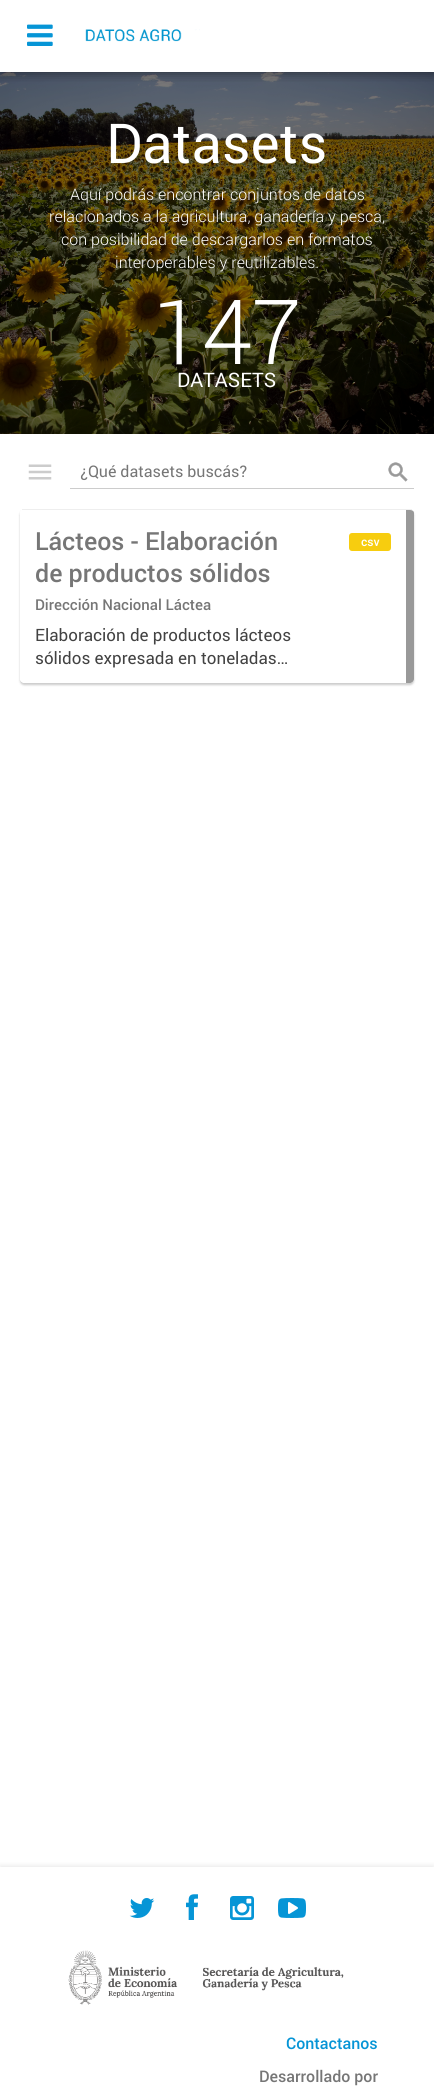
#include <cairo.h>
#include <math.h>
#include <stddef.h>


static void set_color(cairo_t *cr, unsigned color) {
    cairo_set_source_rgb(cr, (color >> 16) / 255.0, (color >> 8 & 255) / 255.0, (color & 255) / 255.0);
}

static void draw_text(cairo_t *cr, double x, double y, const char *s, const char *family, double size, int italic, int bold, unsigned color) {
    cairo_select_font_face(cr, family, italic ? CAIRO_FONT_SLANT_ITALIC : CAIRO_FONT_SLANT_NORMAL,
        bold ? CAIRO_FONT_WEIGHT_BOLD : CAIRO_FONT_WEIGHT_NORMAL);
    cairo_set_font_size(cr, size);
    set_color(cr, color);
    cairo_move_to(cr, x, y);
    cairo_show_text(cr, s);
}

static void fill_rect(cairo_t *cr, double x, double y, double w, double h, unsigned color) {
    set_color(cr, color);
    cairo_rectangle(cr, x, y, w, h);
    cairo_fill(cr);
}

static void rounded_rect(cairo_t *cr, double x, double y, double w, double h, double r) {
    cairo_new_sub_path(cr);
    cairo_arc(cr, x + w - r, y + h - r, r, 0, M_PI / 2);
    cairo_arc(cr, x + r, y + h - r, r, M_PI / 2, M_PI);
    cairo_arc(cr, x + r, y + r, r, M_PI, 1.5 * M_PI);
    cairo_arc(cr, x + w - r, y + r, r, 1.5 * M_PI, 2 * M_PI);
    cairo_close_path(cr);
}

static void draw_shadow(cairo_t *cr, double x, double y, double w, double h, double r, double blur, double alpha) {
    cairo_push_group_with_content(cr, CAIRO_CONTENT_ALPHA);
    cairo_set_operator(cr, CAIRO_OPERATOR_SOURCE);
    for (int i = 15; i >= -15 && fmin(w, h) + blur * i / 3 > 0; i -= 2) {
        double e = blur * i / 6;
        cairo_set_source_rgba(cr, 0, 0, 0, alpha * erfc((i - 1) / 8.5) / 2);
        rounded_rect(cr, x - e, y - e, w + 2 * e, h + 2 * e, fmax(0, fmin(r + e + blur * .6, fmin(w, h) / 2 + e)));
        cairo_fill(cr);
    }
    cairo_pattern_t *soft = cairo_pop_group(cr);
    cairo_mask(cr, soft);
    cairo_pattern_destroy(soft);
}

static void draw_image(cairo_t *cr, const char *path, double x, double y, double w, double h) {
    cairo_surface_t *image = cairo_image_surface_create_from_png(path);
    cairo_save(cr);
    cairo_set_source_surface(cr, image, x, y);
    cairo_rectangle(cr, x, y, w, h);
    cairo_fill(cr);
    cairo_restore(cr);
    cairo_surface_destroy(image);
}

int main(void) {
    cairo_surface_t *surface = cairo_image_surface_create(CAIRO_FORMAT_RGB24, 434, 2097);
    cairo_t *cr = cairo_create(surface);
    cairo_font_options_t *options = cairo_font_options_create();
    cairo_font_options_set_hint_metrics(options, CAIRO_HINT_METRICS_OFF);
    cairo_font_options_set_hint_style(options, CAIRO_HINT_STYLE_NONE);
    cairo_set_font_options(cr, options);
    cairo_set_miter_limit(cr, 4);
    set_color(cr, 0xFFFFFF);
    cairo_paint(cr);
    draw_image(cr, "assets/img3.png", 0, 72, 434, 362);
    cairo_save(cr);
    cairo_rectangle(cr, 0, 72, 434, 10);
    cairo_clip(cr);
    set_color(cr, 0x000000);
    draw_shadow(cr, 0, 0, 434, 72, 0, 6, 0.5);
    cairo_restore(cr);
    draw_image(cr, "assets/img1.png", 27, 24, 26, 22);
    draw_image(cr, "assets/img2.png", 85, 29, 115, 13);
    draw_text(cr, 106, 163, "Datasets", "Roboto", 55, 0, 0, 0xFFFFFF);
    draw_text(cr, 70, 200, "Aquí podrás encontrar conjuntos de datos", "Roboto Light", 16, 0, 0, 0xFFFFFF);
    draw_text(cr, 49, 222, "relacionados a la agricultura, ganadería y pesca,", "Roboto Light", 16, 0, 0, 0xFFFFFF);
    draw_text(cr, 61, 245, "con posibilidad de descargarlos en formatos", "Roboto Light", 16, 0, 0, 0xFFFFFF);
    draw_text(cr, 115, 268, "interoperables y reutilizables.", "Roboto Light", 16, 0, 0, 0xFFFFFF);
    draw_text(cr, 152, 364, "147", "Roboto Light", 90, 0, 0, 0xFFFFFF);
    draw_text(cr, 177, 387, "DATASETS", "Roboto", 20, 0, 0, 0xFFFFFF);
    draw_image(cr, "assets/img4.png", 28, 464, 24, 16);
    fill_rect(cr, 70, 488, 344, 1, 0xCCCCCC);
    draw_text(cr, 80, 477, "¿Qué datasets buscás?", "Roboto", 16, 0, 0, 0x767676);
    draw_image(cr, "assets/img5.png", 388, 462, 20, 20);
    cairo_save(cr);
    cairo_set_fill_rule(cr, CAIRO_FILL_RULE_EVEN_ODD);
    cairo_new_path(cr);
    cairo_move_to(cr, 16, 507);
    cairo_line_to(cr, 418, 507);
    cairo_line_to(cr, 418, 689);
    cairo_line_to(cr, 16, 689);
    cairo_close_path(cr);
    cairo_move_to(cr, 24, 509);
    cairo_line_to(cr, 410, 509);
    cairo_curve_to(cr, 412, 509, 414, 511, 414, 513);
    cairo_line_to(cr, 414, 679);
    cairo_curve_to(cr, 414, 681, 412, 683, 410, 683);
    cairo_line_to(cr, 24, 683);
    cairo_curve_to(cr, 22, 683, 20, 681, 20, 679);
    cairo_line_to(cr, 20, 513);
    cairo_curve_to(cr, 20, 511, 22, 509, 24, 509);
    cairo_close_path(cr);
    cairo_clip(cr);
    set_color(cr, 0x000000);
    draw_shadow(cr, 20, 511, 394, 174, 4, 1, 0.2);
    cairo_restore(cr);
    fill_rect(cr, 22, 509, 390, 1, 0xEEEEEE);
    set_color(cr, 0x999999);
    cairo_new_path(cr);
    cairo_move_to(cr, 406, 510);
    cairo_line_to(cr, 406, 683);
    cairo_line_to(cr, 410, 683);
    cairo_curve_to(cr, 412, 683, 414, 681, 414, 679);
    cairo_line_to(cr, 414, 513);
    cairo_curve_to(cr, 414, 511, 412, 510, 410, 510);
    cairo_close_path(cr);
    cairo_fill(cr);
    draw_text(cr, 35, 550, "Lácteos - Elaboración", "Roboto Medium", 25, 0, 0, 0x767676);
    draw_text(cr, 35, 582, "de productos sólidos", "Roboto Medium", 25, 0, 0, 0x767676);
    draw_text(cr, 35, 610, "Dirección Nacional Láctea", "Roboto Medium", 15, 0, 0, 0x767676);
    draw_text(cr, 35, 641, "Elaboración de productos lácteos", "Roboto", 17, 0, 0, 0x424242);
    draw_text(cr, 35, 664, "sólidos expresada en toneladas…", "Roboto", 17, 0, 0, 0x424242);
    set_color(cr, 0xF7CD0F);
    rounded_rect(cr, 349, 533, 42, 18, 3);
    cairo_fill(cr);
    draw_text(cr, 361, 546, "csv", "Roboto Medium", 12, 0, 0, 0xFFFFFF);
    cairo_save(cr);
    cairo_rectangle(cr, 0, 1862, 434, 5);
    cairo_clip(cr);
    set_color(cr, 0xDCDCDC);
    draw_shadow(cr, 0, 1865, 434, 230, 0, 2, 0.5);
    cairo_restore(cr);
    draw_image(cr, "assets/img6.png", 129, 1898, 26, 20);
    draw_image(cr, "assets/img7.png", 186, 1894, 12, 26);
    draw_image(cr, "assets/img8.png", 230, 1896, 24, 24);
    draw_image(cr, "assets/img9.png", 278, 1898, 28, 20);
    draw_image(cr, "assets/img10.png", 68, 1950, 276, 55);
    draw_text(cr, 286, 2049, "Contactanos", "Roboto Medium", 16, 0, 0, 0x0695D6);
    draw_text(cr, 259, 2082, "Desarrollado por", "Roboto Medium", 16, 0, 0, 0x767676);
    cairo_surface_write_to_png(surface, "output.png");
    cairo_font_options_destroy(options);
    cairo_destroy(cr);
    cairo_surface_destroy(surface);
    return 0;
}
